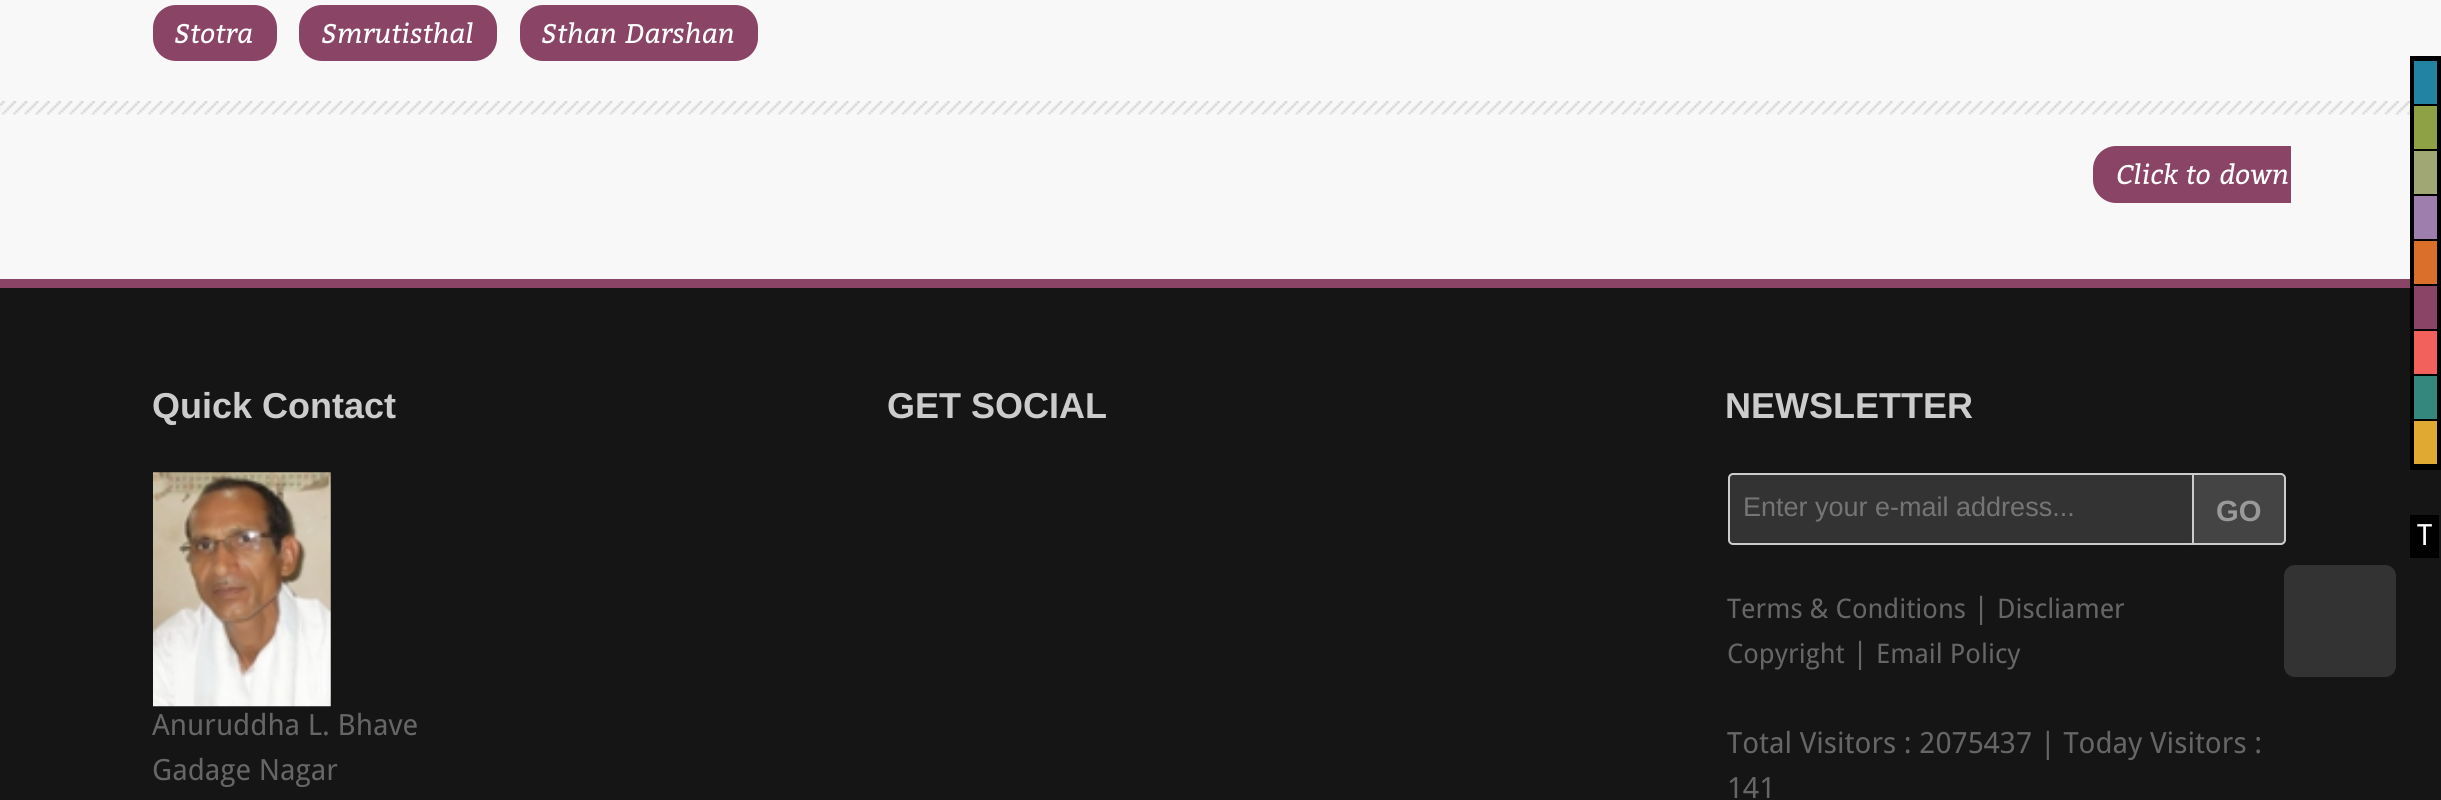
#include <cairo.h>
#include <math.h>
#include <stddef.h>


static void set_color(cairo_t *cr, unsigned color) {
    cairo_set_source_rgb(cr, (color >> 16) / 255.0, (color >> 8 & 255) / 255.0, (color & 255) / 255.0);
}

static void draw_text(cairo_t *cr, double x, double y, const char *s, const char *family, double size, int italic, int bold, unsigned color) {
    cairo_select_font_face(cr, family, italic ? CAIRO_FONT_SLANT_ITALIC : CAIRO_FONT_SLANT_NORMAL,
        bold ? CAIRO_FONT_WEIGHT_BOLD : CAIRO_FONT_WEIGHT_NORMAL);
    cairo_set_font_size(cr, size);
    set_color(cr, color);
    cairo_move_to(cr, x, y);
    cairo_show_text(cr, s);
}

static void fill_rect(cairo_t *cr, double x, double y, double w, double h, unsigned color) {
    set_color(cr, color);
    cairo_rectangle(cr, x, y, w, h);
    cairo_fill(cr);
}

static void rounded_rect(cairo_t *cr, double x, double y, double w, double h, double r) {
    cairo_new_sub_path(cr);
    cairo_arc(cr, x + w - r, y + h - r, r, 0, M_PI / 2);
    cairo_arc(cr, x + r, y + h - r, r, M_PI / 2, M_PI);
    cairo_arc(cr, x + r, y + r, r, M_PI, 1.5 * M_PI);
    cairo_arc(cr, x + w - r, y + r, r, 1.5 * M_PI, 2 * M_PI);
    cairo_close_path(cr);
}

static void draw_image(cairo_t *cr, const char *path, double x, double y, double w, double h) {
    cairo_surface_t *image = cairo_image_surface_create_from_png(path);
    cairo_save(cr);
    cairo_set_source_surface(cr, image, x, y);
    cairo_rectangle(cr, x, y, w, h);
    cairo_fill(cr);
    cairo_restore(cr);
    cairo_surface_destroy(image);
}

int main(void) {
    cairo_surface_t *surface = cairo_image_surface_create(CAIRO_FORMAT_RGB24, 2441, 800);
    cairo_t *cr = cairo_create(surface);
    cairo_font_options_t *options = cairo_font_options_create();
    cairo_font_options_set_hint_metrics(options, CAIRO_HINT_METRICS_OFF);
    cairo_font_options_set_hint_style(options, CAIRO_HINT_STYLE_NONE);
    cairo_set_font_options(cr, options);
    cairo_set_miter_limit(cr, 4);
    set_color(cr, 0xF8F8F8);
    cairo_paint(cr);
    set_color(cr, 0x8A4466);
    rounded_rect(cr, 153, 5, 124, 56, 23);
    cairo_fill(cr);
    draw_text(cr, 174, 43, "Stotra", "Bitter", 27, 1, 0, 0xFFFFFF);
    set_color(cr, 0x8A4466);
    rounded_rect(cr, 299, 5, 198, 56, 23);
    cairo_fill(cr);
    draw_text(cr, 321, 43, "Smrutisthal", "Bitter", 27, 1, 0, 0xFFFFFF);
    set_color(cr, 0x8A4466);
    rounded_rect(cr, 520, 5, 238, 56, 23);
    cairo_fill(cr);
    draw_text(cr, 541, 43, "Sthan Darshan", "Bitter", 27, 1, 0, 0xFFFFFF);
    draw_image(cr, "assets/img1.png", 0, 101, 2410, 14);
    set_color(cr, 0x8A4466);
    cairo_new_path(cr);
    cairo_move_to(cr, 2116, 146);
    cairo_line_to(cr, 2291, 146);
    cairo_line_to(cr, 2291, 203);
    cairo_line_to(cr, 2116, 203);
    cairo_curve_to(cr, 2103.5, 203, 2093, 192.5, 2093, 180);
    cairo_line_to(cr, 2093, 169);
    cairo_curve_to(cr, 2093, 156.5, 2103.5, 146, 2116, 146);
    cairo_close_path(cr);
    cairo_fill(cr);
    draw_text(cr, 2116, 184, "Click to down", "Bitter", 27, 1, 0, 0xFFFFFF);
    fill_rect(cr, 0, 288, 2441, 512, 0x151515);
    fill_rect(cr, 0, 279, 2410, 9, 0x8A4466);
    draw_text(cr, 152, 418, "Quick Contact", "Liberation Sans", 36, 0, 1, 0xCCCCCC);
    draw_image(cr, "assets/img2.png", 153, 472, 178, 235);
    draw_text(cr, 152, 735, "Anuruddha L. Bhave", "Droid Sans", 29.25, 0, 0, 0x666666);
    draw_text(cr, 152, 780, "Gadage Nagar", "Droid Sans", 29.25, 0, 0, 0x666666);
    draw_text(cr, 887, 418, "GET SOCIAL", "Liberation Sans", 36, 0, 1, 0xCCCCCC);
    draw_text(cr, 1725, 418, "NEWSLETTER", "Liberation Sans", 36, 0, 1, 0xCCCCCC);
    set_color(cr, 0x333333);
    rounded_rect(cr, 1729, 474, 466, 70, 4);
    cairo_fill_preserve(cr);
    set_color(cr, 0xCCCCCC);
    cairo_stroke(cr);
    draw_text(cr, 1743, 516, "Enter your e-mail address...", "Liberation Sans", 27, 0, 0, 0x757575);
    set_color(cr, 0x444444);
    cairo_new_path(cr);
    cairo_move_to(cr, 2193, 474);
    cairo_line_to(cr, 2281, 474);
    cairo_curve_to(cr, 2283, 474, 2285, 476, 2285, 478);
    cairo_line_to(cr, 2285, 540);
    cairo_curve_to(cr, 2285, 542, 2283, 544, 2281, 544);
    cairo_line_to(cr, 2193, 544);
    cairo_close_path(cr);
    cairo_fill_preserve(cr);
    set_color(cr, 0xCCCCCC);
    cairo_stroke(cr);
    draw_text(cr, 2216, 521, "GO", "Liberation Sans", 29.25, 0, 1, 0x999999);
    draw_text(cr, 1727, 618, "Terms & Conditions", "Droid Sans", 27, 0, 0, 0x666666);
    draw_text(cr, 1973, 618, "|", "Droid Sans", 29.25, 0, 0, 0x666666);
    draw_text(cr, 1997, 618, "Discliamer", "Droid Sans", 27, 0, 0, 0x666666);
    draw_text(cr, 1727, 663, "Copyright", "Droid Sans", 27, 0, 0, 0x666666);
    draw_text(cr, 1852, 663, "|", "Droid Sans", 29.25, 0, 0, 0x666666);
    draw_text(cr, 1876, 663, "Email Policy", "Droid Sans", 27, 0, 0, 0x666666);
    draw_text(cr, 1727, 753, "Total Visitors : 2075437 | Today Visitors :", "Droid Sans", 29.25, 0, 0, 0x666666);
    draw_text(cr, 1727, 798, "141", "Droid Sans", 29.25, 0, 0, 0x666666);
    set_color(cr, 0x333333);
    rounded_rect(cr, 2284, 565, 112, 112, 11);
    cairo_fill(cr);
    fill_rect(cr, 2410, 56, 31, 414, 0x000000);
    fill_rect(cr, 2414, 61, 23, 43, 0x2284A1);
    fill_rect(cr, 2414, 106, 23, 43, 0x8EA145);
    fill_rect(cr, 2414, 151, 23, 43, 0xA0A774);
    fill_rect(cr, 2414, 196, 23, 43, 0x9E7EAD);
    fill_rect(cr, 2414, 241, 23, 43, 0xDA6F29);
    fill_rect(cr, 2414, 286, 23, 43, 0x8A4466);
    fill_rect(cr, 2414, 331, 23, 43, 0xF2615C);
    fill_rect(cr, 2414, 376, 23, 43, 0x33877D);
    fill_rect(cr, 2414, 421, 23, 43, 0xE0AA32);
    fill_rect(cr, 2410, 515, 29, 43, 0x000000);
    draw_text(cr, 2417, 545, "T", "Droid Sans", 29.25, 0, 0, 0xFFFFFF);
    cairo_surface_write_to_png(surface, "output.png");
    cairo_font_options_destroy(options);
    cairo_destroy(cr);
    cairo_surface_destroy(surface);
    return 0;
}
